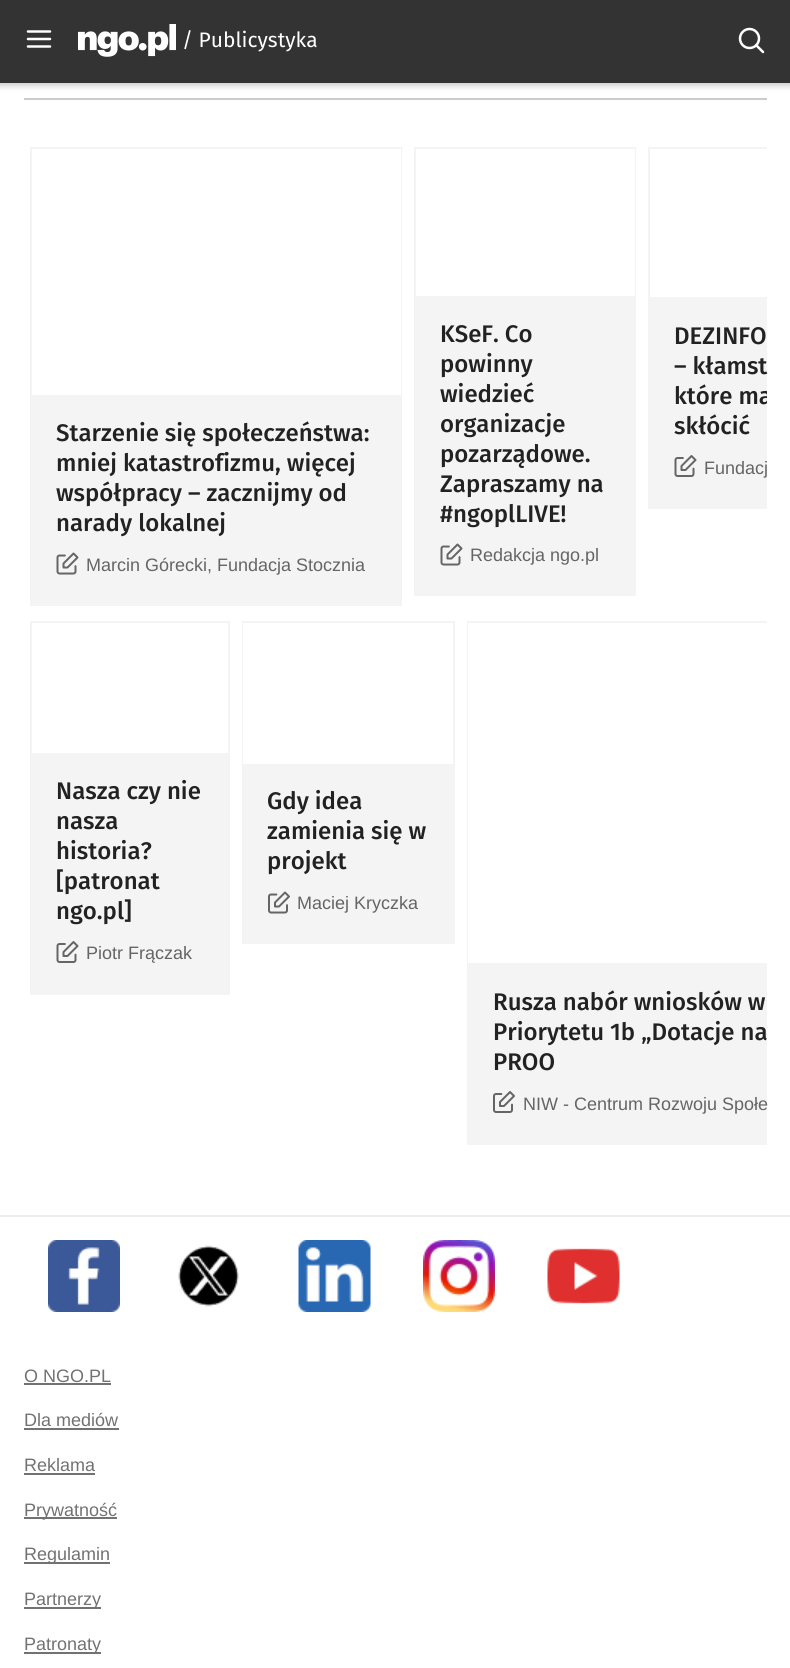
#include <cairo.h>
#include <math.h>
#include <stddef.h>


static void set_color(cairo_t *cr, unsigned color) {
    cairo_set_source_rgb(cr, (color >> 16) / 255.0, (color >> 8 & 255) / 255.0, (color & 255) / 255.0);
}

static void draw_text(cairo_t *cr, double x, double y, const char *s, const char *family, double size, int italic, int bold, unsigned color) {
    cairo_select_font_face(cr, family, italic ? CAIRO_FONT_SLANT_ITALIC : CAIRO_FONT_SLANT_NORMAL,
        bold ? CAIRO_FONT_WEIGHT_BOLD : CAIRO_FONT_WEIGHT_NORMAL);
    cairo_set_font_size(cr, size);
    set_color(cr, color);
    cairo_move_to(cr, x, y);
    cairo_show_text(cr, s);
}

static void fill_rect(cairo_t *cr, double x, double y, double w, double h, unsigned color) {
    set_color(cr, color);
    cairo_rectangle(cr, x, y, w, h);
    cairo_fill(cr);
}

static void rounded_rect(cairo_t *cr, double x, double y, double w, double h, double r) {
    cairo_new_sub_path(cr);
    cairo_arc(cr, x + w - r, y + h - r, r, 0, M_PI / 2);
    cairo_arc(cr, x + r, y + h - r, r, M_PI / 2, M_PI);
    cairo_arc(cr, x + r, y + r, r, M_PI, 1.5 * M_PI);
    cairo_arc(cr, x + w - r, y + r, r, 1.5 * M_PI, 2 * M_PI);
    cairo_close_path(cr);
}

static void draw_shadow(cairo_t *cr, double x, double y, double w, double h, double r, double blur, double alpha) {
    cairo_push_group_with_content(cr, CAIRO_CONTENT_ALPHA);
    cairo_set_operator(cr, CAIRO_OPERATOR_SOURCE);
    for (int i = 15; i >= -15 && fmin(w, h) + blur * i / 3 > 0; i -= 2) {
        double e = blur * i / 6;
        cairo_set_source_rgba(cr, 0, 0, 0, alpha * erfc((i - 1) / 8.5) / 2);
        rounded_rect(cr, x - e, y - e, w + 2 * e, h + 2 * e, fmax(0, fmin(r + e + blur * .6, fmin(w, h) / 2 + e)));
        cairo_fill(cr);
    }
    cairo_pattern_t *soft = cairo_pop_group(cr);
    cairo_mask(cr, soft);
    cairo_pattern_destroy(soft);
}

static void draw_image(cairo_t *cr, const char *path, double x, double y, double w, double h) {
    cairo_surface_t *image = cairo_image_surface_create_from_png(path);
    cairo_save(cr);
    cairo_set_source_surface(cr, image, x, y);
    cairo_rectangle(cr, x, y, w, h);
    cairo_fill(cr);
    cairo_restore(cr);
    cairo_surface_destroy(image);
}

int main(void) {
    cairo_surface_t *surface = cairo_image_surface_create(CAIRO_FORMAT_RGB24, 790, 1668);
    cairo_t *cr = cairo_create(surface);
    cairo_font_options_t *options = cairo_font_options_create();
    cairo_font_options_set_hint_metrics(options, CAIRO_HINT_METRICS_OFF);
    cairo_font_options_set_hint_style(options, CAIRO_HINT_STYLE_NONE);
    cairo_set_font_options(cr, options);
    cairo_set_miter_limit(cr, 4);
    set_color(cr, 0xFFFFFF);
    cairo_paint(cr);
    set_color(cr, 0x000000);
    draw_shadow(cr, -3, -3, 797, 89, 0, 3, 0.2);
    fill_rect(cr, 0, 0, 790, 83, 0x333333);
    cairo_new_path(cr);
    cairo_move_to(cr, 28, 39);
    cairo_line_to(cr, 50, 39);
    cairo_move_to(cr, 28, 31.5);
    cairo_line_to(cr, 50, 31.5);
    cairo_move_to(cr, 28, 46.5);
    cairo_line_to(cr, 50, 46.5);
    set_color(cr, 0xFFFFFF);
    cairo_set_line_width(cr, 2.5);
    cairo_set_line_cap(cr, CAIRO_LINE_CAP_ROUND);
    cairo_set_line_join(cr, CAIRO_LINE_JOIN_ROUND);
    cairo_stroke(cr);
    draw_image(cr, "assets/img1.png", 78, 24, 98, 33);
    draw_text(cr, 182, 47, "/ Publicystyka", "Fira Sans", 21, 0, 0, 0xFFFFFF);
    cairo_new_path(cr);
    cairo_arc(cr, 749.5, 38.5, 9.5, 0, 2 * M_PI);
    cairo_set_line_cap(cr, CAIRO_LINE_CAP_BUTT);
    cairo_set_line_join(cr, CAIRO_LINE_JOIN_MITER);
    cairo_stroke(cr);
    cairo_new_path(cr);
    cairo_move_to(cr, 763, 52);
    cairo_line_to(cr, 756.5, 45.5);
    cairo_set_line_cap(cr, CAIRO_LINE_CAP_ROUND);
    cairo_set_line_join(cr, CAIRO_LINE_JOIN_ROUND);
    cairo_stroke(cr);
    fill_rect(cr, 24, 98, 743, 2, 0xCCCCCC);
    cairo_rectangle(cr, 415, 148, 220, 447);
    set_color(cr, 0xF4F4F4);
    cairo_set_line_width(cr, 2);
    cairo_set_line_cap(cr, CAIRO_LINE_CAP_BUTT);
    cairo_set_line_join(cr, CAIRO_LINE_JOIN_MITER);
    cairo_stroke(cr);
    fill_rect(cr, 634, 149, 1, 147, 0xFFFFFF);
    fill_rect(cr, 416, 296, 218, 298, 0xF4F4F4);
    draw_text(cr, 440, 342, "KSeF. Co", "Fira Sans Medium", 24, 0, 0, 0x222222);
    draw_text(cr, 440, 372, "powinny", "Fira Sans Medium", 24, 0, 0, 0x222222);
    draw_text(cr, 440, 402, "wiedzieć", "Fira Sans Medium", 24, 0, 0, 0x222222);
    draw_text(cr, 440, 432, "organizacje", "Fira Sans Medium", 24, 0, 0, 0x222222);
    draw_text(cr, 440, 462, "pozarządowe.", "Fira Sans Medium", 24, 0, 0, 0x222222);
    draw_text(cr, 440, 492, "Zapraszamy na", "Fira Sans Medium", 24, 0, 0, 0x222222);
    draw_text(cr, 440, 522, "#ngoplLIVE!", "Fira Sans Medium", 24, 0, 0, 0x222222);
    draw_image(cr, "assets/img2.png", 440, 543, 23, 23);
    draw_text(cr, 470, 561, "Redakcja ngo.pl", "Liberation Sans", 18, 0, 0, 0x656565);
    cairo_save(cr);
    cairo_rectangle(cr, 24, 147, 743, 474);
    cairo_clip(cr);
    cairo_rectangle(cr, 649, 148, 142, 360);
    set_color(cr, 0xF4F4F4);
    cairo_stroke(cr);
    cairo_restore(cr);
    fill_rect(cr, 650, 297, 117, 210, 0xF4F4F4);
    draw_text(cr, 674, 344, "DEZINFO", "Fira Sans Medium", 24, 0, 0, 0x222222);
    draw_text(cr, 674, 374, "– kłamst", "Fira Sans Medium", 24, 0, 0, 0x222222);
    cairo_save(cr);
    cairo_rectangle(cr, 650, 149, 117, 358);
    cairo_clip(cr);
    draw_text(cr, 674, 404, "które ma", "Fira Sans Medium", 24, 0, 0, 0x222222);
    cairo_restore(cr);
    draw_text(cr, 674, 434, "skłócić", "Fira Sans Medium", 24, 0, 0, 0x222222);
    draw_image(cr, "assets/img3.png", 674, 455, 23, 22);
    draw_text(cr, 704, 474, "Fundacj", "Liberation Sans", 18, 0, 0, 0x656565);
    cairo_rectangle(cr, 31, 148, 370, 457);
    set_color(cr, 0xF4F4F4);
    cairo_stroke(cr);
    fill_rect(cr, 400, 149, 1, 246, 0xFFFFFF);
    fill_rect(cr, 32, 395, 368, 209, 0xF4F4F4);
    draw_text(cr, 56, 441, "Starzenie się społeczeństwa:", "Fira Sans Medium", 24, 0, 0, 0x222222);
    draw_text(cr, 56, 471, "mniej katastrofizmu, więcej", "Fira Sans Medium", 24, 0, 0, 0x222222);
    draw_text(cr, 56, 501, "współpracy – zacznijmy od", "Fira Sans Medium", 24, 0, 0, 0x222222);
    draw_text(cr, 56, 531, "narady lokalnej", "Fira Sans Medium", 24, 0, 0, 0x222222);
    draw_image(cr, "assets/img2.png", 56, 552, 23, 23);
    draw_text(cr, 86, 571, "Marcin Górecki, Fundacja Stocznia", "Liberation Sans", 18, 0, 0, 0x656565);
    cairo_rectangle(cr, 31, 622, 198, 372);
    set_color(cr, 0xF4F4F4);
    cairo_stroke(cr);
    fill_rect(cr, 32, 753, 196, 240, 0xF4F4F4);
    draw_text(cr, 56, 799, "Nasza czy nie", "Fira Sans Medium", 24, 0, 0, 0x222222);
    draw_text(cr, 56, 829, "nasza", "Fira Sans Medium", 24, 0, 0, 0x222222);
    draw_text(cr, 56, 859, "historia?", "Fira Sans Medium", 24, 0, 0, 0x222222);
    draw_text(cr, 56, 889, "[patronat", "Fira Sans Medium", 24, 0, 0, 0x222222);
    draw_text(cr, 56, 919, "ngo.pl]", "Fira Sans Medium", 24, 0, 0, 0x222222);
    draw_image(cr, "assets/img3.png", 56, 941, 23, 22);
    draw_text(cr, 86, 959, "Piotr Frączak", "Liberation Sans", 18, 0, 0, 0x656565);
    cairo_rectangle(cr, 243, 622, 211, 321);
    set_color(cr, 0xF4F4F4);
    cairo_stroke(cr);
    fill_rect(cr, 243, 623, 1, 141, 0xFFFFFF);
    fill_rect(cr, 244, 764, 209, 178, 0xF4F4F4);
    draw_text(cr, 267, 809, "Gdy idea", "Fira Sans Medium", 24, 0, 0, 0x222222);
    draw_text(cr, 267, 839, "zamienia się w", "Fira Sans Medium", 24, 0, 0, 0x222222);
    draw_text(cr, 267, 869, "projekt", "Fira Sans Medium", 24, 0, 0, 0x222222);
    draw_image(cr, "assets/img4.png", 268, 891, 22, 23);
    draw_text(cr, 297, 909, "Maciej Kryczka", "Liberation Sans", 18, 0, 0, 0x656565);
    cairo_save(cr);
    cairo_rectangle(cr, 24, 621, 743, 546);
    cairo_clip(cr);
    cairo_rectangle(cr, 468, 622, 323, 522);
    set_color(cr, 0xF4F4F4);
    cairo_stroke(cr);
    cairo_restore(cr);
    fill_rect(cr, 468, 623, 1, 340, 0xFFFFFF);
    fill_rect(cr, 469, 963, 298, 180, 0xF4F4F4);
    draw_text(cr, 493, 1010, "Rusza nabór wniosków w", "Fira Sans Medium", 24, 0, 0, 0x222222);
    draw_text(cr, 493, 1040, "Priorytetu 1b „Dotacje na", "Fira Sans Medium", 24, 0, 0, 0x222222);
    draw_text(cr, 493, 1070, "PROO", "Fira Sans Medium", 24, 0, 0, 0x222222);
    draw_image(cr, "assets/img5.png", 493, 1091, 22, 22);
    draw_text(cr, 523, 1110, "NIW - Centrum Rozwoju Społe", "Liberation Sans", 18, 0, 0, 0x656565);
    fill_rect(cr, 0, 1215, 790, 2, 0xEEEEEE);
    draw_image(cr, "assets/img6.png", 48, 1240, 72, 72);
    draw_image(cr, "assets/img7.png", 178, 1245, 61, 62);
    draw_image(cr, "assets/img8.png", 298, 1240, 73, 72);
    draw_image(cr, "assets/img9.png", 423, 1240, 72, 72);
    draw_image(cr, "assets/img10.png", 547, 1248, 73, 56);
    draw_text(cr, 24, 1382, "O NGO.PL", "Liberation Sans", 18, 0, 0, 0x727272);
    fill_rect(cr, 24, 1383, 87, 2, 0x727272);
    draw_text(cr, 24, 1426, "Dla mediów", "Liberation Sans", 18, 0, 0, 0x727272);
    fill_rect(cr, 24, 1428, 95, 2, 0x727272);
    draw_text(cr, 24, 1471, "Reklama", "Liberation Sans", 18, 0, 0, 0x727272);
    fill_rect(cr, 24, 1473, 71, 2, 0x727272);
    fill_rect(cr, 24, 1517, 93, 2, 0x727272);
    draw_text(cr, 24, 1516, "Prywatność", "Liberation Sans", 18, 0, 0, 0x727272);
    fill_rect(cr, 24, 1562, 86, 2, 0x727272);
    draw_text(cr, 24, 1560, "Regulamin", "Liberation Sans", 18, 0, 0, 0x727272);
    fill_rect(cr, 24, 1607, 77, 2, 0x727272);
    draw_text(cr, 24, 1605, "Partnerzy", "Liberation Sans", 18, 0, 0, 0x727272);
    fill_rect(cr, 24, 1652, 77, 2, 0x727272);
    draw_text(cr, 24, 1650, "Patronaty", "Liberation Sans", 18, 0, 0, 0x727272);
    cairo_surface_write_to_png(surface, "output.png");
    cairo_font_options_destroy(options);
    cairo_destroy(cr);
    cairo_surface_destroy(surface);
    return 0;
}
